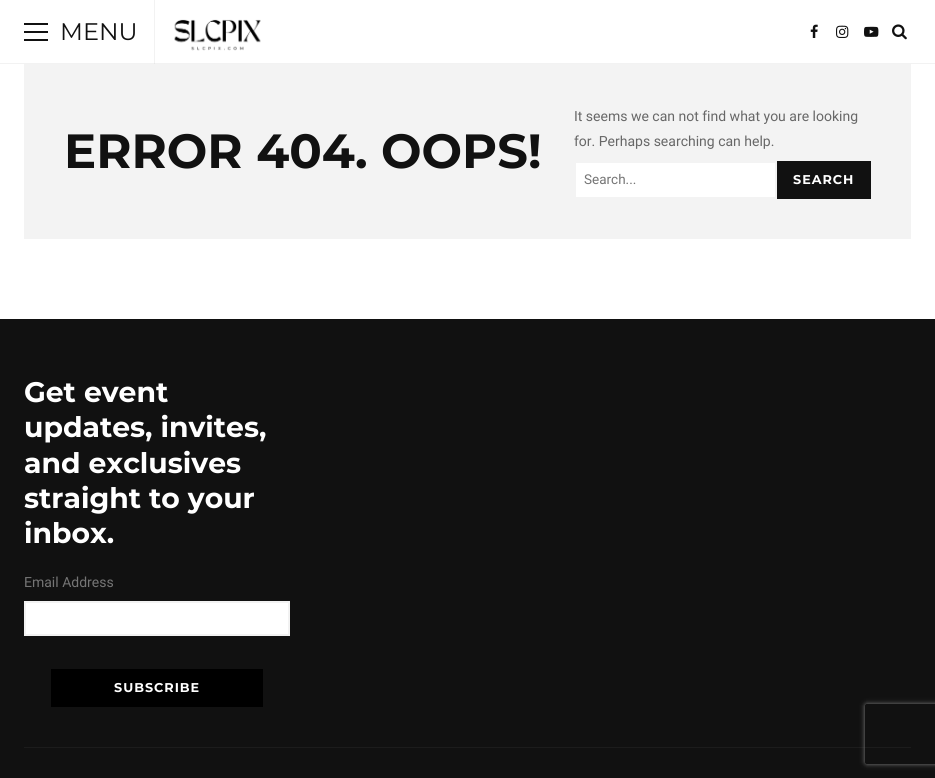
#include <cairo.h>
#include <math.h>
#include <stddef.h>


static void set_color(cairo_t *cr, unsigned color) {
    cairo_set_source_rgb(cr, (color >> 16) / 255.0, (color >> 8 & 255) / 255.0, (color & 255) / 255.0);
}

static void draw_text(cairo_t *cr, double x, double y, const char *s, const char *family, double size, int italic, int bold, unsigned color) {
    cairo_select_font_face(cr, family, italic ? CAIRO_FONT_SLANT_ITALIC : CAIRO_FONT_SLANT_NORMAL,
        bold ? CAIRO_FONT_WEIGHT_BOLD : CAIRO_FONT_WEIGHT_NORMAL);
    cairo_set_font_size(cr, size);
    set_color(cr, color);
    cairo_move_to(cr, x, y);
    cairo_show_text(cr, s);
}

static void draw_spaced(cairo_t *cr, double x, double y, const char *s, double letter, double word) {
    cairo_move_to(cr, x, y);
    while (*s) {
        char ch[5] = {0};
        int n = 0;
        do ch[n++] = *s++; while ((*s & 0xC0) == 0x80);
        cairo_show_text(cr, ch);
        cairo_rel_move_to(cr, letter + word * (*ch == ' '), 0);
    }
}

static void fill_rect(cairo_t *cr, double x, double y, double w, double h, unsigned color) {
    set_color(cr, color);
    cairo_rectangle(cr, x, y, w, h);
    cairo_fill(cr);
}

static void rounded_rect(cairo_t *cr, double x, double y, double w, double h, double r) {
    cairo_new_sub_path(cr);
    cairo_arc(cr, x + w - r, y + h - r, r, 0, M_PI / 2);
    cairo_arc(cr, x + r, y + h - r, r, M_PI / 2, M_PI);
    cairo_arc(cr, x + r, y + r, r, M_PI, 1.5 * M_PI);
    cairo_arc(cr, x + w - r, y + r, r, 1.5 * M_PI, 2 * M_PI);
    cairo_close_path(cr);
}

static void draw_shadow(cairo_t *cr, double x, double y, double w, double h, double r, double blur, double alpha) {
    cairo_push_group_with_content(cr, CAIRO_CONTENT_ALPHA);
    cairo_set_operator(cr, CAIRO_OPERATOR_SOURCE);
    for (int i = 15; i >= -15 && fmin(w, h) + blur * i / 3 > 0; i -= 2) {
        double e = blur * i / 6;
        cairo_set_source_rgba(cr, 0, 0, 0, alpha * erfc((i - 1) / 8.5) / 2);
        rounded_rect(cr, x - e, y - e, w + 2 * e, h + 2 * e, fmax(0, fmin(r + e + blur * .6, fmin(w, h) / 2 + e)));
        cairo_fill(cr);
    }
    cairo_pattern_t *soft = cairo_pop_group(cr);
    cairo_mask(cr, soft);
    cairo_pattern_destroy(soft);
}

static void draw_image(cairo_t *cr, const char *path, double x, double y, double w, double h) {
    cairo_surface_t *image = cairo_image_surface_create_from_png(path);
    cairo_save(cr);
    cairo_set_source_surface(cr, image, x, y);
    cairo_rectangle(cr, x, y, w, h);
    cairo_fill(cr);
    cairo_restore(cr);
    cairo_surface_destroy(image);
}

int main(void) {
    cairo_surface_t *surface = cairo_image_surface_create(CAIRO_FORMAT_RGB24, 935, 778);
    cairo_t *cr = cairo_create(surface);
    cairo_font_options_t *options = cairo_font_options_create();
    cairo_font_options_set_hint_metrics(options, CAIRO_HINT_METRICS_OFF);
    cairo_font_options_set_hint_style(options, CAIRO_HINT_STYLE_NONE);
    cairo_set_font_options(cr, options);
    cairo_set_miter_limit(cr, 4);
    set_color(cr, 0xFFFFFF);
    cairo_paint(cr);
    fill_rect(cr, 154, 0, 1, 64, 0xF2F2F2);
    fill_rect(cr, 0, 63, 935, 1, 0xF2F2F2);
    fill_rect(cr, 154, 63, 1, 1, 0xE7E7E7);
    fill_rect(cr, 24, 31, 24, 2, 0x111111);
    fill_rect(cr, 24, 23, 24, 2, 0x111111);
    fill_rect(cr, 24, 39, 24, 2, 0x111111);
    draw_text(cr, 60, 40, "MENU", "Montserrat", 24, 0, 0, 0x111111);
    draw_image(cr, "assets/img1.png", 174, 19, 87, 32);
    draw_image(cr, "assets/img2.png", 810, 24, 8, 14);
    draw_image(cr, "assets/img3.png", 836, 25, 13, 13);
    draw_image(cr, "assets/img4.png", 864, 26, 15, 11);
    draw_image(cr, "assets/img5.png", 892, 24, 15, 16);
    fill_rect(cr, 24, 64, 887, 175, 0xF3F3F3);
    draw_text(cr, 64, 168, "ERROR 404. OOPS!", "Montserrat", 48, 0, 1, 0x111111);
    draw_text(cr, 574, 121, "It seems we can not find what you are looking", "Roboto", 14, 0, 0, 0x676767);
    draw_text(cr, 574, 146, "for. Perhaps searching can help.", "Roboto", 14, 0, 0, 0x676767);
    fill_rect(cr, 576, 163, 199, 34, 0xFFFFFF);
    draw_text(cr, 584, 184, "Search...", "Roboto", 13.5, 0, 0, 0x757575);
    fill_rect(cr, 777, 161, 94, 38, 0x111111);
    cairo_select_font_face(cr, "Montserrat", CAIRO_FONT_SLANT_NORMAL, CAIRO_FONT_WEIGHT_BOLD);
    cairo_set_font_size(cr, 12.75);
    set_color(cr, 0xFFFFFF);
    draw_spaced(cr, 793, 184, "SEARCH", 1, 0);
    fill_rect(cr, 0, 319, 935, 459, 0x111111);
    draw_text(cr, 24, 402, "Get event", "Montserrat", 28.25, 0, 1, 0xFFFFFF);
    draw_text(cr, 24, 437, "updates, invites,", "Montserrat", 28.25, 0, 1, 0xFFFFFF);
    draw_text(cr, 24, 473, "and exclusives", "Montserrat", 28.25, 0, 1, 0xFFFFFF);
    draw_text(cr, 24, 508, "straight to your", "Montserrat", 28.25, 0, 1, 0xFFFFFF);
    draw_text(cr, 24, 543, "inbox.", "Montserrat", 28.25, 0, 1, 0xFFFFFF);
    draw_text(cr, 24, 587, "Email Address", "Roboto", 14, 0, 0, 0x757575);
    set_color(cr, 0xFFFFFF);
    cairo_rectangle(cr, 25, 602, 264, 33);
    cairo_fill_preserve(cr);
    set_color(cr, 0xF2F2F2);
    cairo_stroke(cr);
    fill_rect(cr, 51, 669, 212, 38, 0x000000);
    cairo_select_font_face(cr, "Montserrat", CAIRO_FONT_SLANT_NORMAL, CAIRO_FONT_WEIGHT_BOLD);
    cairo_set_font_size(cr, 12.75);
    set_color(cr, 0xFFFFFF);
    draw_spaced(cr, 114, 692, "SUBSCRIBE", 1, 0);
    fill_rect(cr, 24, 747, 887, 1, 0x1C1C1C);
    cairo_save(cr);
    cairo_set_fill_rule(cr, CAIRO_FILL_RULE_EVEN_ODD);
    cairo_new_path(cr);
    cairo_move_to(cr, 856, 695);
    cairo_line_to(cr, 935, 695);
    cairo_line_to(cr, 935, 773);
    cairo_line_to(cr, 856, 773);
    cairo_close_path(cr);
    cairo_move_to(cr, 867, 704);
    cairo_line_to(cr, 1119, 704);
    cairo_curve_to(cr, 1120, 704, 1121, 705, 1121, 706);
    cairo_line_to(cr, 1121, 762);
    cairo_curve_to(cr, 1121, 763, 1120, 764, 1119, 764);
    cairo_line_to(cr, 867, 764);
    cairo_curve_to(cr, 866, 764, 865, 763, 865, 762);
    cairo_line_to(cr, 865, 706);
    cairo_curve_to(cr, 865, 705, 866, 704, 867, 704);
    cairo_close_path(cr);
    cairo_clip(cr);
    set_color(cr, 0x808080);
    draw_shadow(cr, 865, 704, 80, 60, 2, 2.5, 1);
    cairo_restore(cr);
    cairo_surface_write_to_png(surface, "output.png");
    cairo_font_options_destroy(options);
    cairo_destroy(cr);
    cairo_surface_destroy(surface);
    return 0;
}
